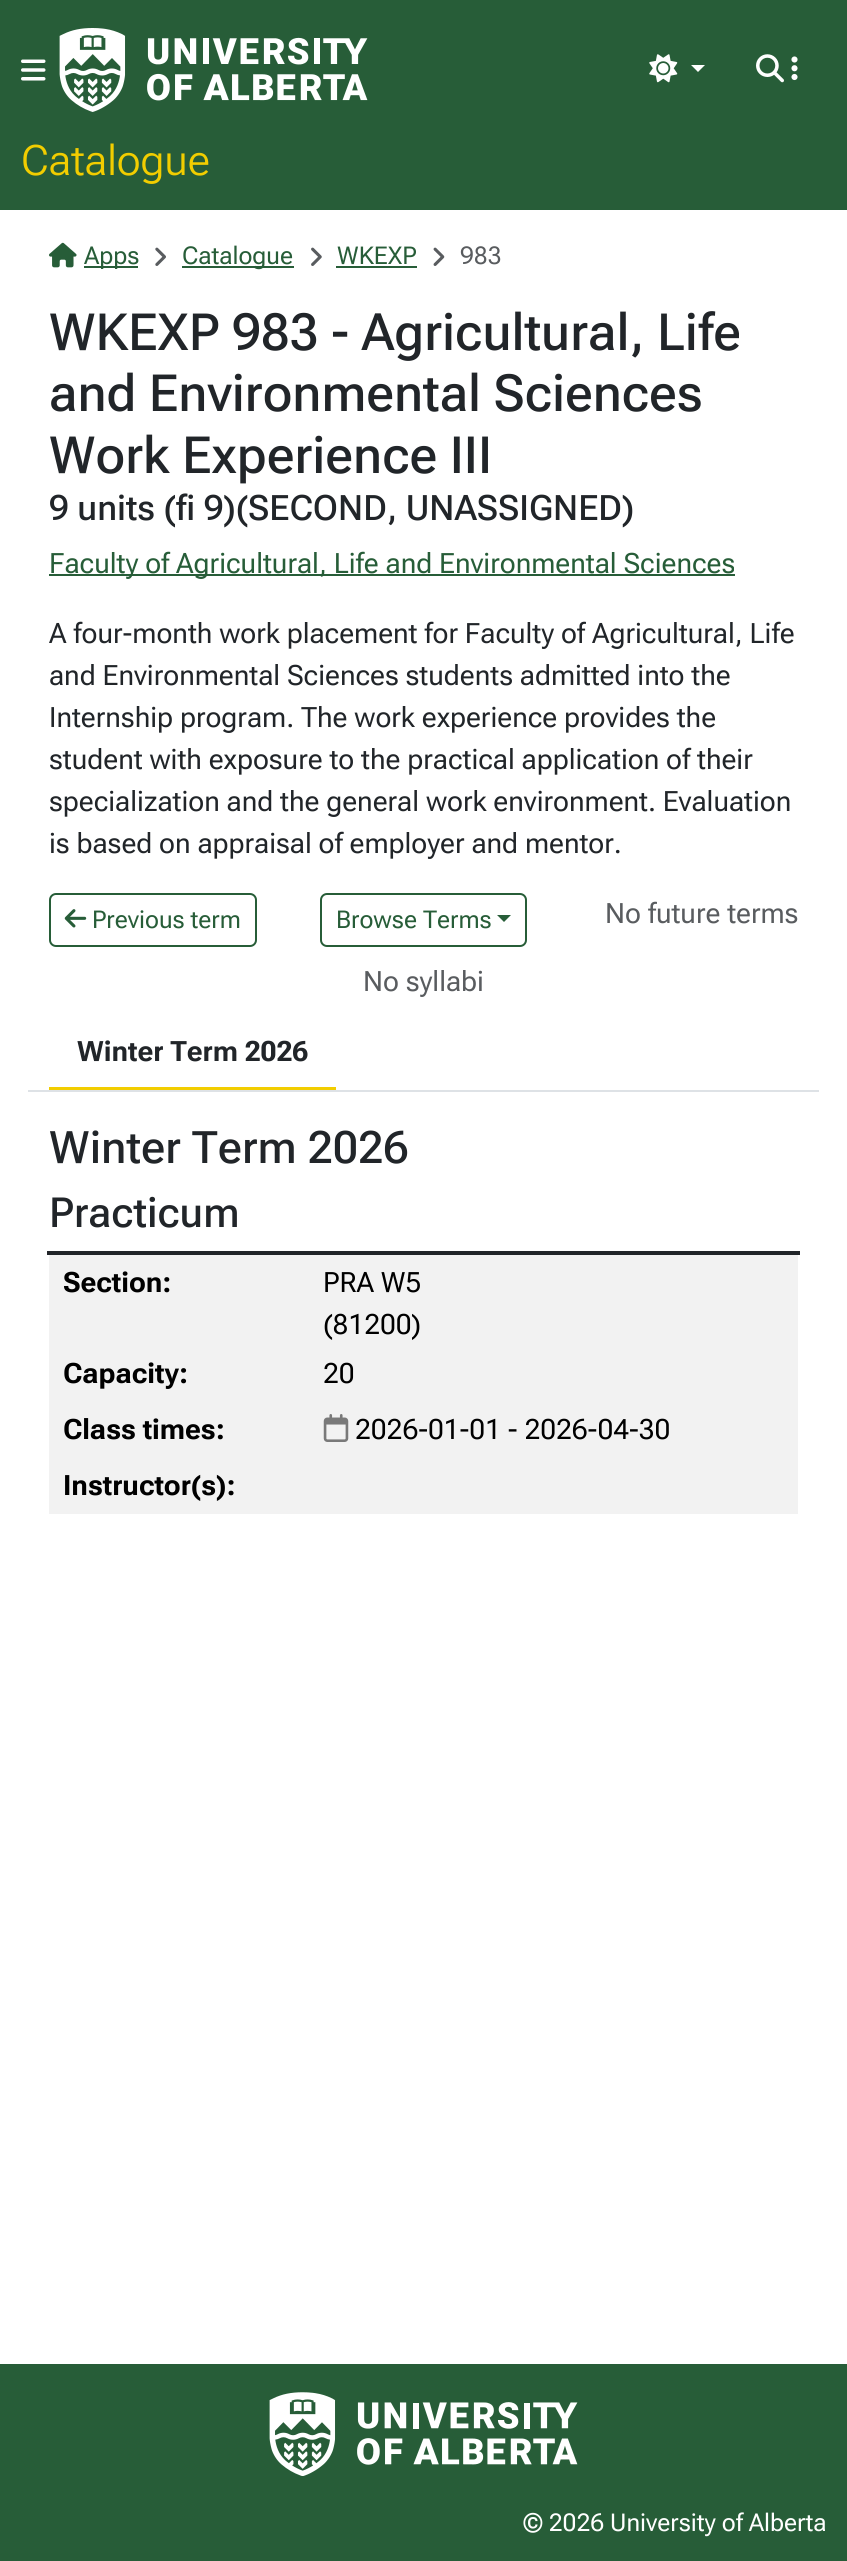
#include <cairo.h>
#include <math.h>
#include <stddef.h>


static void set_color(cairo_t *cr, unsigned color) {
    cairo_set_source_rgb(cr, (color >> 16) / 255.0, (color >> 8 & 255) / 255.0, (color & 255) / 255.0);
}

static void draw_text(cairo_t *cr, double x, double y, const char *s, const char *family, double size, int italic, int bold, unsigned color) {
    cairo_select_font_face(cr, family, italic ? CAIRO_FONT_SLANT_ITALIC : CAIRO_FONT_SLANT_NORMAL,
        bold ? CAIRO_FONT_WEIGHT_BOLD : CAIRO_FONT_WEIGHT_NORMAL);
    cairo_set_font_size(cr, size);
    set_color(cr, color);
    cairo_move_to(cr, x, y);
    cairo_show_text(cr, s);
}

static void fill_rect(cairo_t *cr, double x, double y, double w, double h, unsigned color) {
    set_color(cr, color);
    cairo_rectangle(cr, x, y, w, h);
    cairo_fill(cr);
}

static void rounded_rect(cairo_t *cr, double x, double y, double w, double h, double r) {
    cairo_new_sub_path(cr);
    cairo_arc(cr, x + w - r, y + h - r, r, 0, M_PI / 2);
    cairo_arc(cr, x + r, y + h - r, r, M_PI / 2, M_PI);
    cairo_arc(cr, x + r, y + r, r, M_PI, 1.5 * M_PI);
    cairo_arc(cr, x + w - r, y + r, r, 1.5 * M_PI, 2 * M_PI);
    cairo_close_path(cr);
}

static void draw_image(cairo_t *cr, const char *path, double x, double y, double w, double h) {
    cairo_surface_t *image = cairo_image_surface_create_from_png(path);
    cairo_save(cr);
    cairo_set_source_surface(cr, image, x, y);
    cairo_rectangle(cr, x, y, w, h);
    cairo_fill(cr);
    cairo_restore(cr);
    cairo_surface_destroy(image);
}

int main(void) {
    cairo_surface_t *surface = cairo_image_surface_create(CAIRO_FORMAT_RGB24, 847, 2561);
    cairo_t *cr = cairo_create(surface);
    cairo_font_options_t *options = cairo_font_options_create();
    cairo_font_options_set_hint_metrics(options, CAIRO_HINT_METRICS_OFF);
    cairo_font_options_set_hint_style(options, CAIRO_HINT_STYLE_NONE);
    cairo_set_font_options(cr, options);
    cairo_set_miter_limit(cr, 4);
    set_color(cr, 0xFFFFFF);
    cairo_paint(cr);
    fill_rect(cr, 0, 0, 847, 210, 0x275D38);
    draw_image(cr, "assets/img1.png", 21, 59, 25, 22);
    draw_image(cr, "assets/img2.png", 59, 28, 309, 84);
    draw_image(cr, "assets/img3.png", 649, 54, 29, 29);
    set_color(cr, 0xFFFFFF);
    cairo_new_path(cr);
    cairo_move_to(cr, 691, 65);
    cairo_line_to(cr, 705, 65);
    cairo_line_to(cr, 698, 72);
    cairo_close_path(cr);
    cairo_fill(cr);
    draw_image(cr, "assets/img4.png", 756, 54, 28, 29);
    draw_image(cr, "assets/img5.png", 791, 56, 7, 25);
    draw_text(cr, 21, 175, "Catalogue", "Roboto Flex Light", 42, 0, 0, 0xF2CD00);
    fill_rect(cr, 28, 1090, 791, 2, 0xDEE2E6);
    draw_image(cr, "assets/img6.png", 49, 242, 28, 26);
    fill_rect(cr, 84, 266, 54, 2, 0x275D38);
    draw_text(cr, 84, 264, "Apps", "Roboto Flex", 24.5, 0, 0, 0x275D38);
    draw_image(cr, "assets/img7.png", 155, 247, 11, 19);
    fill_rect(cr, 182, 266, 112, 2, 0x275D38);
    draw_text(cr, 182, 264, "Catalogue", "Roboto Flex", 24.5, 0, 0, 0x275D38);
    draw_image(cr, "assets/img8.png", 311, 247, 11, 19);
    draw_text(cr, 337, 264, "WKEXP", "Roboto Flex", 24.5, 0, 0, 0x275D38);
    fill_rect(cr, 336, 266, 81, 2, 0x275D38);
    draw_image(cr, "assets/img9.png", 433, 247, 12, 19);
    draw_text(cr, 460, 264, "983", "Roboto Flex", 24.5, 0, 0, 0x595C5F);
    draw_text(cr, 49, 350, "WKEXP 983 - Agricultural, Life", "Roboto Flex Medium", 51.25, 0, 0, 0x212529);
    draw_text(cr, 49, 411, "and Environmental Sciences", "Roboto Flex Medium", 51.25, 0, 0, 0x212529);
    draw_text(cr, 49, 473, "Work Experience III", "Roboto Flex Medium", 51.25, 0, 0, 0x212529);
    draw_text(cr, 49, 520, "9 units (fi 9)(SECOND, UNASSIGNED)", "Roboto Flex Medium", 35, 0, 0, 0x212529);
    fill_rect(cr, 49, 574, 686, 2, 0x275D38);
    draw_text(cr, 49, 573, "Faculty of Agricultural, Life and Environmental Sciences", "Roboto Flex", 28, 0, 0, 0x275D38);
    draw_text(cr, 49, 643, "A four-month work placement for Faculty of Agricultural, Life", "Roboto Flex", 28, 0, 0, 0x212529);
    draw_text(cr, 49, 685, "and Environmental Sciences students admitted into the", "Roboto Flex", 28, 0, 0, 0x212529);
    draw_text(cr, 49, 727, "Internship program. The work experience provides the", "Roboto Flex", 28, 0, 0, 0x212529);
    draw_text(cr, 49, 769, "student with exposure to the practical application of their", "Roboto Flex", 28, 0, 0, 0x212529);
    draw_text(cr, 49, 811, "specialization and the general work environment. Evaluation", "Roboto Flex", 28, 0, 0, 0x212529);
    draw_text(cr, 49, 853, "is based on appraisal of employer and mentor.", "Roboto Flex", 28, 0, 0, 0x212529);
    rounded_rect(cr, 50, 894, 206, 52, 6);
    set_color(cr, 0x275D38);
    cairo_stroke(cr);
    draw_image(cr, "assets/img10.png", 64, 909, 23, 19);
    draw_text(cr, 92, 928, "Previous term", "Roboto Flex", 24.5, 0, 0, 0x275D38);
    rounded_rect(cr, 321, 894, 205, 52, 6);
    cairo_stroke(cr);
    draw_text(cr, 336, 928, "Browse Terms", "Roboto Flex", 24.5, 0, 0, 0x275D38);
    cairo_new_path(cr);
    cairo_move_to(cr, 497, 915);
    cairo_line_to(cr, 511, 915);
    cairo_line_to(cr, 504, 922);
    cairo_close_path(cr);
    cairo_fill(cr);
    draw_text(cr, 605, 923, "No future terms", "Roboto Flex", 28, 0, 0, 0x595C5F);
    draw_text(cr, 363, 991, "No syllabi", "Roboto Flex", 28, 0, 0, 0x595C5F);
    fill_rect(cr, 49, 1087, 287, 3, 0xF2CD00);
    draw_text(cr, 77, 1061, "Winter Term 2026", "Roboto Flex", 28, 0, 1, 0x212529);
    draw_text(cr, 49, 1163, "Winter Term 2026", "Roboto Flex Medium", 44.75, 0, 0, 0x212529);
    draw_text(cr, 49, 1227, "Practicum", "Roboto Flex Medium", 41.5, 0, 0, 0x212529);
    fill_rect(cr, 47, 1251, 753, 4, 0x212529);
    fill_rect(cr, 49, 1255, 749, 259, 0xF2F2F2);
    draw_text(cr, 63, 1292, "Section:", "Roboto Flex", 28, 0, 1, 0x000000);
    draw_text(cr, 323, 1292, "PRA W5", "Roboto Flex", 28, 0, 0, 0x000000);
    draw_text(cr, 323, 1334, "(81200)", "Roboto Flex", 28, 0, 0, 0x000000);
    draw_text(cr, 63, 1383, "Capacity:", "Roboto Flex", 28, 0, 1, 0x000000);
    draw_text(cr, 323, 1383, "20", "Roboto Flex", 28, 0, 0, 0x000000);
    draw_text(cr, 63, 1439, "Class times:", "Roboto Flex", 28, 0, 1, 0x000000);
    draw_image(cr, "assets/img11.png", 323, 1414, 26, 28);
    draw_text(cr, 355, 1439, "2026-01-01 - 2026-04-30", "Roboto Flex", 28, 0, 0, 0x000000);
    draw_text(cr, 63, 1495, "Instructor(s):", "Roboto Flex", 28, 0, 1, 0x000000);
    fill_rect(cr, 0, 2364, 847, 197, 0x275D38);
    draw_image(cr, "assets/img12.png", 269, 2392, 309, 84);
    draw_text(cr, 523, 2531, "© 2026 University of Alberta", "Roboto Flex", 24.5, 0, 0, 0xFFFFFF);
    cairo_surface_write_to_png(surface, "output.png");
    cairo_font_options_destroy(options);
    cairo_destroy(cr);
    cairo_surface_destroy(surface);
    return 0;
}
